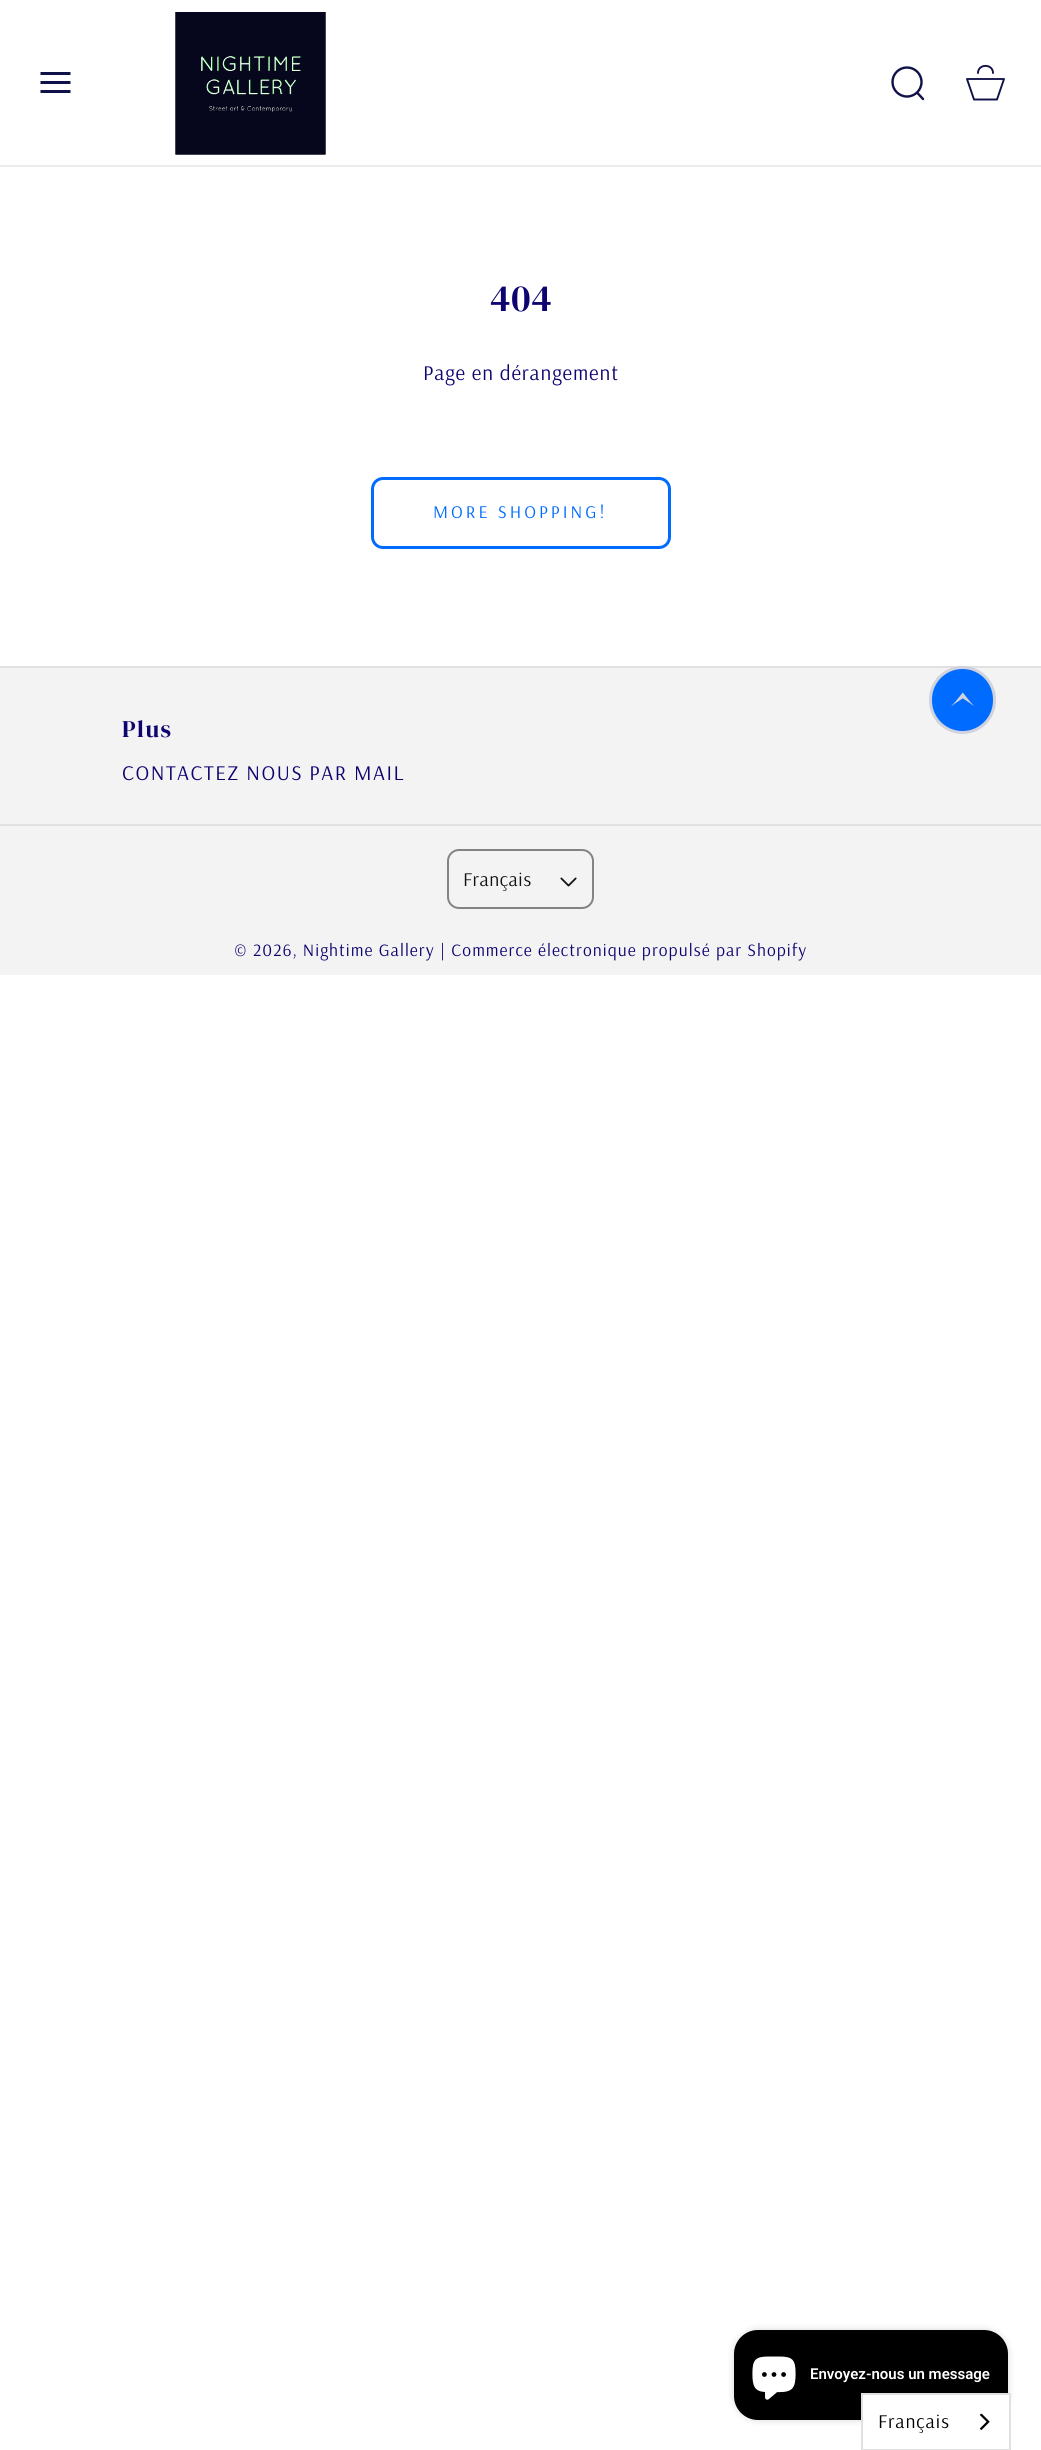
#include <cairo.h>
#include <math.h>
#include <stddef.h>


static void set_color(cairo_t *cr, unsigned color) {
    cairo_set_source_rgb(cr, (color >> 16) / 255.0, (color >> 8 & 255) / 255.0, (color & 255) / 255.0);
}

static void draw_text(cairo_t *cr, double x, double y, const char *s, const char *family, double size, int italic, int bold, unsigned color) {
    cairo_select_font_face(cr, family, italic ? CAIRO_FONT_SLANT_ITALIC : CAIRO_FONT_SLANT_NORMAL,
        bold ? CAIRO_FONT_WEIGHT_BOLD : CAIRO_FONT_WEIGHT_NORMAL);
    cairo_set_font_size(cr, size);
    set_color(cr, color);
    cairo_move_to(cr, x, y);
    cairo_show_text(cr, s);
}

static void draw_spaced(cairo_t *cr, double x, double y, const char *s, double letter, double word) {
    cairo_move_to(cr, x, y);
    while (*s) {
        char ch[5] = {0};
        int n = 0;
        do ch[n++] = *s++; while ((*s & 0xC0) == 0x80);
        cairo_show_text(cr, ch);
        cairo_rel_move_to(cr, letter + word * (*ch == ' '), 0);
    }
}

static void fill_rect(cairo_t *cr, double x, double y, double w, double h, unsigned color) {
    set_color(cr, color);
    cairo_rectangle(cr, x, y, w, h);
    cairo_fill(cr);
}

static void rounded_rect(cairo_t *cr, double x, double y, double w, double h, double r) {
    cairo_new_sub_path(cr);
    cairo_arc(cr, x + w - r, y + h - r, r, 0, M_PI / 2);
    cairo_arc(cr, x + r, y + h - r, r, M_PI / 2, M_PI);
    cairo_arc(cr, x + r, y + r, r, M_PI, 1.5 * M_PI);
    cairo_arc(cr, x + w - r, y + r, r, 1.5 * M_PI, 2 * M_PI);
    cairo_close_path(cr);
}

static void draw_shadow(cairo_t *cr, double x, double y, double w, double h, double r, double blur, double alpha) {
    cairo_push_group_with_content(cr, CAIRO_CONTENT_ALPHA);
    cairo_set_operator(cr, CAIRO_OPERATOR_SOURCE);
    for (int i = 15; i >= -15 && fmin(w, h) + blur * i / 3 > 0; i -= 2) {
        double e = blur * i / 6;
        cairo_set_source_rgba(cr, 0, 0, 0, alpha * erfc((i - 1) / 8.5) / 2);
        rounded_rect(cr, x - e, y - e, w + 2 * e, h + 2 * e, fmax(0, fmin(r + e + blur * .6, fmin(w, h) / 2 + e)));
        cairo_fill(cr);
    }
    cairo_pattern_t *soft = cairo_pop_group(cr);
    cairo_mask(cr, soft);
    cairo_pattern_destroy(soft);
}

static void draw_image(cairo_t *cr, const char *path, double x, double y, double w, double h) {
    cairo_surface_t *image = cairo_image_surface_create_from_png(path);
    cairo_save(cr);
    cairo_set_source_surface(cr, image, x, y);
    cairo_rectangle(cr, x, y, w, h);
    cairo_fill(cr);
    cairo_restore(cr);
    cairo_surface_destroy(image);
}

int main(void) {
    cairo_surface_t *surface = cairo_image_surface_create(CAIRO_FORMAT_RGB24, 1041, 2450);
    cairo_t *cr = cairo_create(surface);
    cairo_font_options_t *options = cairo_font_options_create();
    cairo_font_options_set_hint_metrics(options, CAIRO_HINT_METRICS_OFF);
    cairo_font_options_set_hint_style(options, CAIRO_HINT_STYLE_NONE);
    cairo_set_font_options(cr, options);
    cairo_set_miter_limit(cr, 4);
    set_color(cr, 0xFFFFFF);
    cairo_paint(cr);
    fill_rect(cr, 0, 165, 1041, 2, 0xECECEC);
    draw_image(cr, "assets/img1.png", 175, 12, 151, 143);
    draw_image(cr, "assets/img2.png", 40, 72, 31, 21);
    draw_image(cr, "assets/img3.png", 175, 12, 151, 143);
    cairo_arc(cr, 907, 82, 14.5, 0, 2 * M_PI);
    set_color(cr, 0x101148);
    cairo_set_line_width(cr, 2.4);
    cairo_stroke(cr);
    cairo_new_path(cr);
    cairo_move_to(cr, 917.5, 93);
    cairo_line_to(cr, 923, 99);
    cairo_set_line_cap(cr, CAIRO_LINE_CAP_ROUND);
    cairo_set_line_join(cr, CAIRO_LINE_JOIN_ROUND);
    cairo_stroke(cr);
    cairo_new_path(cr);
    cairo_move_to(cr, 967, 79);
    cairo_line_to(cr, 1004, 79);
    cairo_line_to(cr, 997, 99.5);
    cairo_line_to(cr, 974, 99.5);
    cairo_close_path(cr);
    cairo_move_to(cr, 993, 73);
    cairo_curve_to(cr, 993, 63.5, 978, 63.5, 978, 73);
    cairo_set_line_width(cr, 1.9);
    cairo_stroke(cr);
    cairo_select_font_face(cr, "DM Serif Display", CAIRO_FONT_SLANT_NORMAL, CAIRO_FONT_WEIGHT_NORMAL);
    cairo_set_font_size(cr, 38);
    set_color(cr, 0x0E0470);
    draw_spaced(cr, 490, 311, "404", 0.9, 0);
    cairo_select_font_face(cr, "Arsenal", CAIRO_FONT_SLANT_NORMAL, CAIRO_FONT_WEIGHT_NORMAL);
    cairo_set_font_size(cr, 21);
    draw_spaced(cr, 423, 380, "Page en dérangement", 0.9, 0);
    rounded_rect(cr, 372.5, 478.5, 297, 69, 10.5);
    set_color(cr, 0x006BFF);
    cairo_set_line_width(cr, 3);
    cairo_set_line_cap(cr, CAIRO_LINE_CAP_BUTT);
    cairo_set_line_join(cr, CAIRO_LINE_JOIN_MITER);
    cairo_stroke(cr);
    cairo_set_font_size(cr, 18);
    draw_spaced(cr, 433, 518, "MORE SHOPPING!", 3, 0);
    fill_rect(cr, 0, 668, 1041, 307, 0xF3F3F3);
    fill_rect(cr, 0, 666, 1041, 2, 0xE1E1E1);
    set_color(cr, 0x006BFF);
    rounded_rect(cr, 930.5, 667.5, 64, 65, 32);
    cairo_fill_preserve(cr);
    set_color(cr, 0xD0D2DE);
    cairo_stroke(cr);
    draw_image(cr, "assets/img4.png", 951, 692, 23, 14);
    cairo_select_font_face(cr, "DM Serif Display", CAIRO_FONT_SLANT_NORMAL, CAIRO_FONT_WEIGHT_NORMAL);
    cairo_set_font_size(cr, 24);
    set_color(cr, 0x0E0470);
    draw_spaced(cr, 122, 737, "Plus", 1.5, 0);
    cairo_select_font_face(cr, "Arsenal", CAIRO_FONT_SLANT_NORMAL, CAIRO_FONT_WEIGHT_NORMAL);
    cairo_set_font_size(cr, 21);
    draw_spaced(cr, 122, 780, "CONTACTEZ NOUS PAR MAIL", 1.5, 0);
    fill_rect(cr, 0, 824, 1041, 2, 0xE1E1E1);
    rounded_rect(cr, 448, 850, 145, 58, 11);
    set_color(cr, 0x838383);
    cairo_set_line_width(cr, 2);
    cairo_stroke(cr);
    cairo_set_font_size(cr, 19.5);
    set_color(cr, 0x121212);
    draw_spaced(cr, 463, 886, "Français", 0.5, 0);
    draw_image(cr, "assets/img5.png", 560, 877, 17, 10);
    cairo_set_font_size(cr, 17.5);
    set_color(cr, 0x0E0470);
    draw_spaced(cr, 234, 956, "© 2026, Nightime Gallery", 1.05, 0);
    draw_spaced(cr, 440, 956, "| Commerce électronique propulsé par Shopify", 1.05, 0);
    set_color(cr, 0x000000);
    draw_shadow(cr, 734, 2330, 274, 90, 24, 4, 0.15);
    set_color(cr, 0x000000);
    rounded_rect(cr, 734, 2330, 274, 90, 24);
    cairo_fill(cr);
    draw_image(cr, "assets/img6.png", 752, 2356, 44, 44);
    draw_text(cr, 810, 2379, "Envoyez-nous un message", "Roboto SemiBold", 15, 0, 0, 0xFFFFFF);
    fill_rect(cr, 863, 2395, 146, 31, 0xFFFFFF);
    cairo_rectangle(cr, 862, 2394, 148, 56);
    set_color(cr, 0xE0E0E0);
    cairo_stroke(cr);
    cairo_select_font_face(cr, "Arsenal", CAIRO_FONT_SLANT_NORMAL, CAIRO_FONT_WEIGHT_NORMAL);
    cairo_set_font_size(cr, 19.5);
    set_color(cr, 0x000000);
    draw_spaced(cr, 878, 2428, "Français", 0.9, 0);
    draw_image(cr, "assets/img7.png", 980, 2413, 10, 17);
    cairo_surface_write_to_png(surface, "output.png");
    cairo_font_options_destroy(options);
    cairo_destroy(cr);
    cairo_surface_destroy(surface);
    return 0;
}
